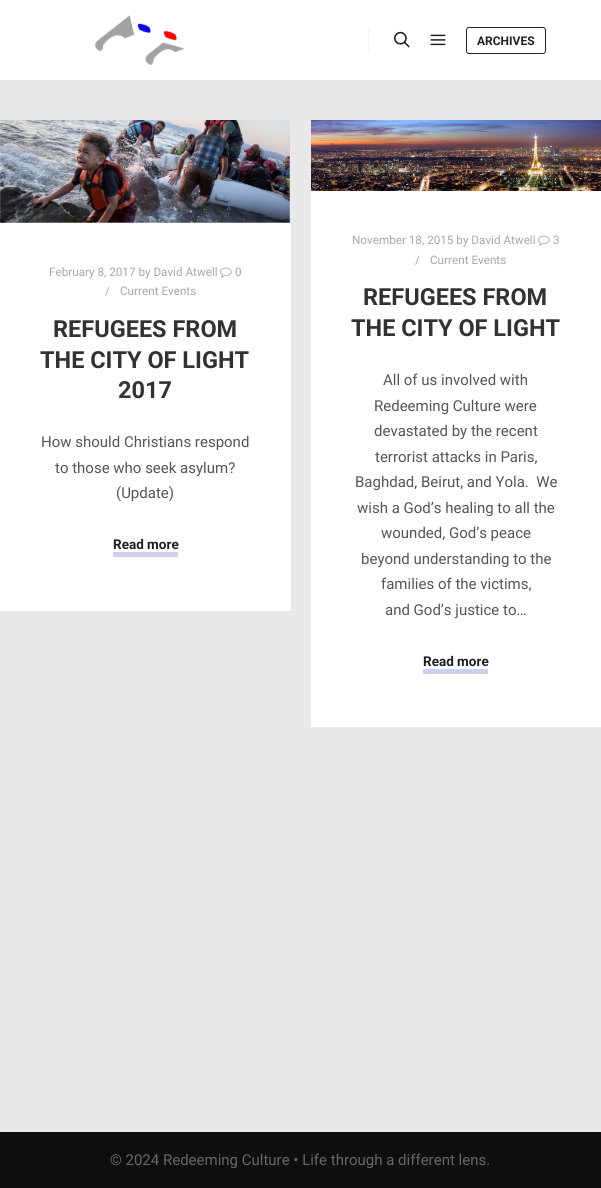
#include <cairo.h>
#include <math.h>
#include <stddef.h>


static void set_color(cairo_t *cr, unsigned color) {
    cairo_set_source_rgb(cr, (color >> 16) / 255.0, (color >> 8 & 255) / 255.0, (color & 255) / 255.0);
}

static void draw_text(cairo_t *cr, double x, double y, const char *s, const char *family, double size, int italic, int bold, unsigned color) {
    cairo_select_font_face(cr, family, italic ? CAIRO_FONT_SLANT_ITALIC : CAIRO_FONT_SLANT_NORMAL,
        bold ? CAIRO_FONT_WEIGHT_BOLD : CAIRO_FONT_WEIGHT_NORMAL);
    cairo_set_font_size(cr, size);
    set_color(cr, color);
    cairo_move_to(cr, x, y);
    cairo_show_text(cr, s);
}

static void fill_rect(cairo_t *cr, double x, double y, double w, double h, unsigned color) {
    set_color(cr, color);
    cairo_rectangle(cr, x, y, w, h);
    cairo_fill(cr);
}

static void rounded_rect(cairo_t *cr, double x, double y, double w, double h, double r) {
    cairo_new_sub_path(cr);
    cairo_arc(cr, x + w - r, y + h - r, r, 0, M_PI / 2);
    cairo_arc(cr, x + r, y + h - r, r, M_PI / 2, M_PI);
    cairo_arc(cr, x + r, y + r, r, M_PI, 1.5 * M_PI);
    cairo_arc(cr, x + w - r, y + r, r, 1.5 * M_PI, 2 * M_PI);
    cairo_close_path(cr);
}

static void draw_image(cairo_t *cr, const char *path, double x, double y, double w, double h) {
    cairo_surface_t *image = cairo_image_surface_create_from_png(path);
    cairo_save(cr);
    cairo_set_source_surface(cr, image, x, y);
    cairo_rectangle(cr, x, y, w, h);
    cairo_fill(cr);
    cairo_restore(cr);
    cairo_surface_destroy(image);
}

int main(void) {
    cairo_surface_t *surface = cairo_image_surface_create(CAIRO_FORMAT_RGB24, 601, 1188);
    cairo_t *cr = cairo_create(surface);
    cairo_font_options_t *options = cairo_font_options_create();
    cairo_font_options_set_hint_metrics(options, CAIRO_HINT_METRICS_OFF);
    cairo_font_options_set_hint_style(options, CAIRO_HINT_STYLE_NONE);
    cairo_set_font_options(cr, options);
    cairo_set_miter_limit(cr, 4);
    set_color(cr, 0xE9E9E9);
    cairo_paint(cr);
    fill_rect(cr, 0, 0, 601, 80, 0xFFFFFF);
    draw_image(cr, "assets/img1.png", 95, 15, 90, 50);
    fill_rect(cr, 368, 28, 1, 25, 0xF3F3F3);
    draw_image(cr, "assets/img2.png", 394, 31, 16, 17);
    draw_image(cr, "assets/img3.png", 430, 34, 16, 12);
    rounded_rect(cr, 466.5, 27.5, 79, 26, 2.5);
    set_color(cr, 0x222222);
    cairo_set_line_width(cr, 1);
    cairo_stroke(cr);
    draw_text(cr, 477, 45, "ARCHIVES", "Roboto", 12, 0, 1, 0x1F1F1F);
    draw_image(cr, "assets/img4.png", 0, 120, 290, 103);
    fill_rect(cr, 0, 223, 291, 388, 0xFFFFFF);
    draw_text(cr, 49, 276, "February 8, 2017 by David Atwell", "Roboto", 11.7, 0, 0, 0xA7A7A7);
    draw_image(cr, "assets/img5.png", 220, 267, 12, 11);
    draw_text(cr, 235, 276, "0", "Roboto", 11.7, 0, 0, 0xA7A7A7);
    draw_text(cr, 105, 295, "/", "Roboto", 11.7, 0, 0, 0xA7A7A7);
    draw_text(cr, 120, 295, "Current Events", "Roboto", 11.7, 0, 0, 0xA7A7A7);
    draw_text(cr, 53, 337, "REFUGEES FROM", "Roboto", 23.5, 0, 1, 0x323232);
    draw_text(cr, 40, 368, "THE CITY OF LIGHT", "Roboto", 23.5, 0, 1, 0x323232);
    draw_text(cr, 118, 398, "2017", "Roboto", 23.5, 0, 1, 0x323232);
    draw_text(cr, 41, 447, "How should Christians respond", "Roboto", 15, 0, 0, 0x555555);
    draw_text(cr, 55, 473, "to those who seek asylum?", "Roboto", 15, 0, 0, 0x555555);
    draw_text(cr, 116, 498, "(Update)", "Roboto", 15, 0, 0, 0x555555);
    draw_text(cr, 113, 549, "Read more", "Roboto", 13.5, 0, 1, 0x1F1F1F);
    fill_rect(cr, 113, 552, 65, 5, 0xCECEEE);
    draw_image(cr, "assets/img6.png", 311, 120, 290, 71);
    fill_rect(cr, 311, 191, 290, 536, 0xFFFFFF);
    draw_text(cr, 352, 244, "November 18, 2015 by David Atwell", "Roboto", 11.7, 0, 0, 0xA7A7A7);
    draw_image(cr, "assets/img5.png", 538, 235, 12, 11);
    draw_text(cr, 553, 244, "3", "Roboto", 11.7, 0, 0, 0xA7A7A7);
    draw_text(cr, 415, 264, "/", "Roboto", 11.7, 0, 0, 0xA7A7A7);
    draw_text(cr, 430, 264, "Current Events", "Roboto", 11.7, 0, 0, 0xA7A7A7);
    draw_text(cr, 363, 305, "REFUGEES FROM", "Roboto", 23.5, 0, 1, 0x323232);
    draw_text(cr, 351, 336, "THE CITY OF LIGHT", "Roboto", 23.5, 0, 1, 0x323232);
    draw_text(cr, 383, 385, "All of us involved with", "Roboto", 15, 0, 0, 0x555555);
    draw_text(cr, 374, 411, "Redeeming Culture were", "Roboto", 15, 0, 0, 0x555555);
    draw_text(cr, 374, 436, "devastated by the recent", "Roboto", 15, 0, 0, 0x555555);
    draw_text(cr, 375, 462, "terrorist attacks in Paris,", "Roboto", 15, 0, 0, 0x555555);
    draw_text(cr, 355, 487, "Baghdad, Beirut, and Yola.  We", "Roboto", 15, 0, 0, 0x555555);
    draw_text(cr, 357, 513, "wish a God’s healing to all the", "Roboto", 15, 0, 0, 0x555555);
    draw_text(cr, 381, 538, "wounded, God’s peace", "Roboto", 15, 0, 0, 0x555555);
    draw_text(cr, 361, 564, "beyond understanding to the", "Roboto", 15, 0, 0, 0x555555);
    draw_text(cr, 381, 589, "families of the victims,", "Roboto", 15, 0, 0, 0x555555);
    draw_text(cr, 385, 615, "and God’s justice to…", "Roboto", 15, 0, 0, 0x555555);
    draw_text(cr, 423, 666, "Read more", "Roboto", 13.5, 0, 1, 0x1F1F1F);
    fill_rect(cr, 423, 669, 65, 5, 0xCECEEE);
    fill_rect(cr, 0, 1132, 601, 56, 0x0E0E0E);
    draw_text(cr, 110, 1165, "© 2024 Redeeming Culture • Life through a different lens.", "Roboto", 15, 0, 0, 0x666666);
    cairo_surface_write_to_png(surface, "output.png");
    cairo_font_options_destroy(options);
    cairo_destroy(cr);
    cairo_surface_destroy(surface);
    return 0;
}
